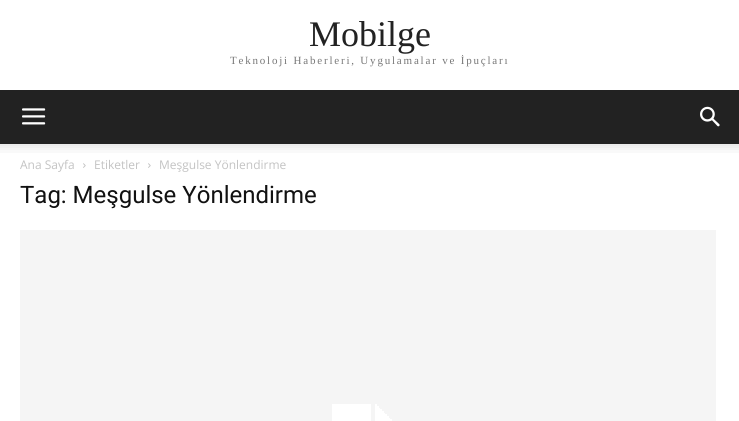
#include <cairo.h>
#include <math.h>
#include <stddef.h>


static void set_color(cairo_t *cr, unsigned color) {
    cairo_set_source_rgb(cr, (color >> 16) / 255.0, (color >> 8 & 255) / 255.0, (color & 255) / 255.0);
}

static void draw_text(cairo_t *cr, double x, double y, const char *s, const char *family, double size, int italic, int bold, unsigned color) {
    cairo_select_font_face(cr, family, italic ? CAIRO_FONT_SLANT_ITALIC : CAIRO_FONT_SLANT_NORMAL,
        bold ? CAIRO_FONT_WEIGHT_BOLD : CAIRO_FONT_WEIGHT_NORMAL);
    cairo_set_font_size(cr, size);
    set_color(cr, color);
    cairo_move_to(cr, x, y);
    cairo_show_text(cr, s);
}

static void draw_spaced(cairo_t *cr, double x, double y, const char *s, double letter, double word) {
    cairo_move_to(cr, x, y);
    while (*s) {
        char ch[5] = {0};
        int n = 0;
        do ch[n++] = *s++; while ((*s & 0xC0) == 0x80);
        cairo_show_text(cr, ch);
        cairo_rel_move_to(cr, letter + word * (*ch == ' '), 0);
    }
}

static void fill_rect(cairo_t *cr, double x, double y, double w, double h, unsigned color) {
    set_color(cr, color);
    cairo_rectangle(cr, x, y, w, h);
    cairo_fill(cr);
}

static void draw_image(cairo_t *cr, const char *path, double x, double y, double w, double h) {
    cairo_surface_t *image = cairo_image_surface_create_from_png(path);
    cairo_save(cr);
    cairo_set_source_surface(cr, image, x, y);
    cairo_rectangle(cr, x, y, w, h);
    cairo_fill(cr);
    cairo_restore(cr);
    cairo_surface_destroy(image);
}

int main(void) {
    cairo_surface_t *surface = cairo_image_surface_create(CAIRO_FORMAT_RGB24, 739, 421);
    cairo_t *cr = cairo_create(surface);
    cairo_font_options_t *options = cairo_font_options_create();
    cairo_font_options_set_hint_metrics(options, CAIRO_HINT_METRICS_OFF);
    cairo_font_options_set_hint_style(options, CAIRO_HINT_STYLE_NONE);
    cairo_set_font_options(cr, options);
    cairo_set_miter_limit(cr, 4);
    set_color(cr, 0xFFFFFF);
    cairo_paint(cr);
    draw_text(cr, 309, 46, "Mobilge", "Liberation Serif", 36, 0, 0, 0x222222);
    cairo_set_font_size(cr, 11);
    set_color(cr, 0x777777);
    draw_spaced(cr, 230, 64, "Teknoloji Haberleri, Uygulamalar ve İpuçları", 1.8, 0);
    fill_rect(cr, 0, 90, 739, 54, 0x222222);
    draw_image(cr, "assets/img1.png", 22, 108, 24, 17);
    draw_image(cr, "assets/img2.png", 700, 106, 20, 21);
    draw_image(cr, "assets/img3.png", 0, 144, 739, 9);
    draw_text(cr, 20, 169, "Ana Sayfa", "Open Sans", 12, 0, 0, 0xC3C3C3);
    draw_image(cr, "assets/img4.png", 83, 163, 3, 5);
    draw_text(cr, 94, 169, "Etiketler", "Open Sans", 12, 0, 0, 0xC3C3C3);
    draw_image(cr, "assets/img4.png", 148, 163, 3, 5);
    draw_text(cr, 159, 169, "Meşgulse Yönlendirme", "Open Sans", 12, 0, 0, 0xC3C3C3);
    draw_text(cr, 20, 203, "Tag: Meşgulse Yönlendirme", "Roboto", 24, 0, 0, 0x111111);
    draw_image(cr, "assets/img5.png", 20, 230, 696, 191);
    cairo_surface_write_to_png(surface, "output.png");
    cairo_font_options_destroy(options);
    cairo_destroy(cr);
    cairo_surface_destroy(surface);
    return 0;
}
